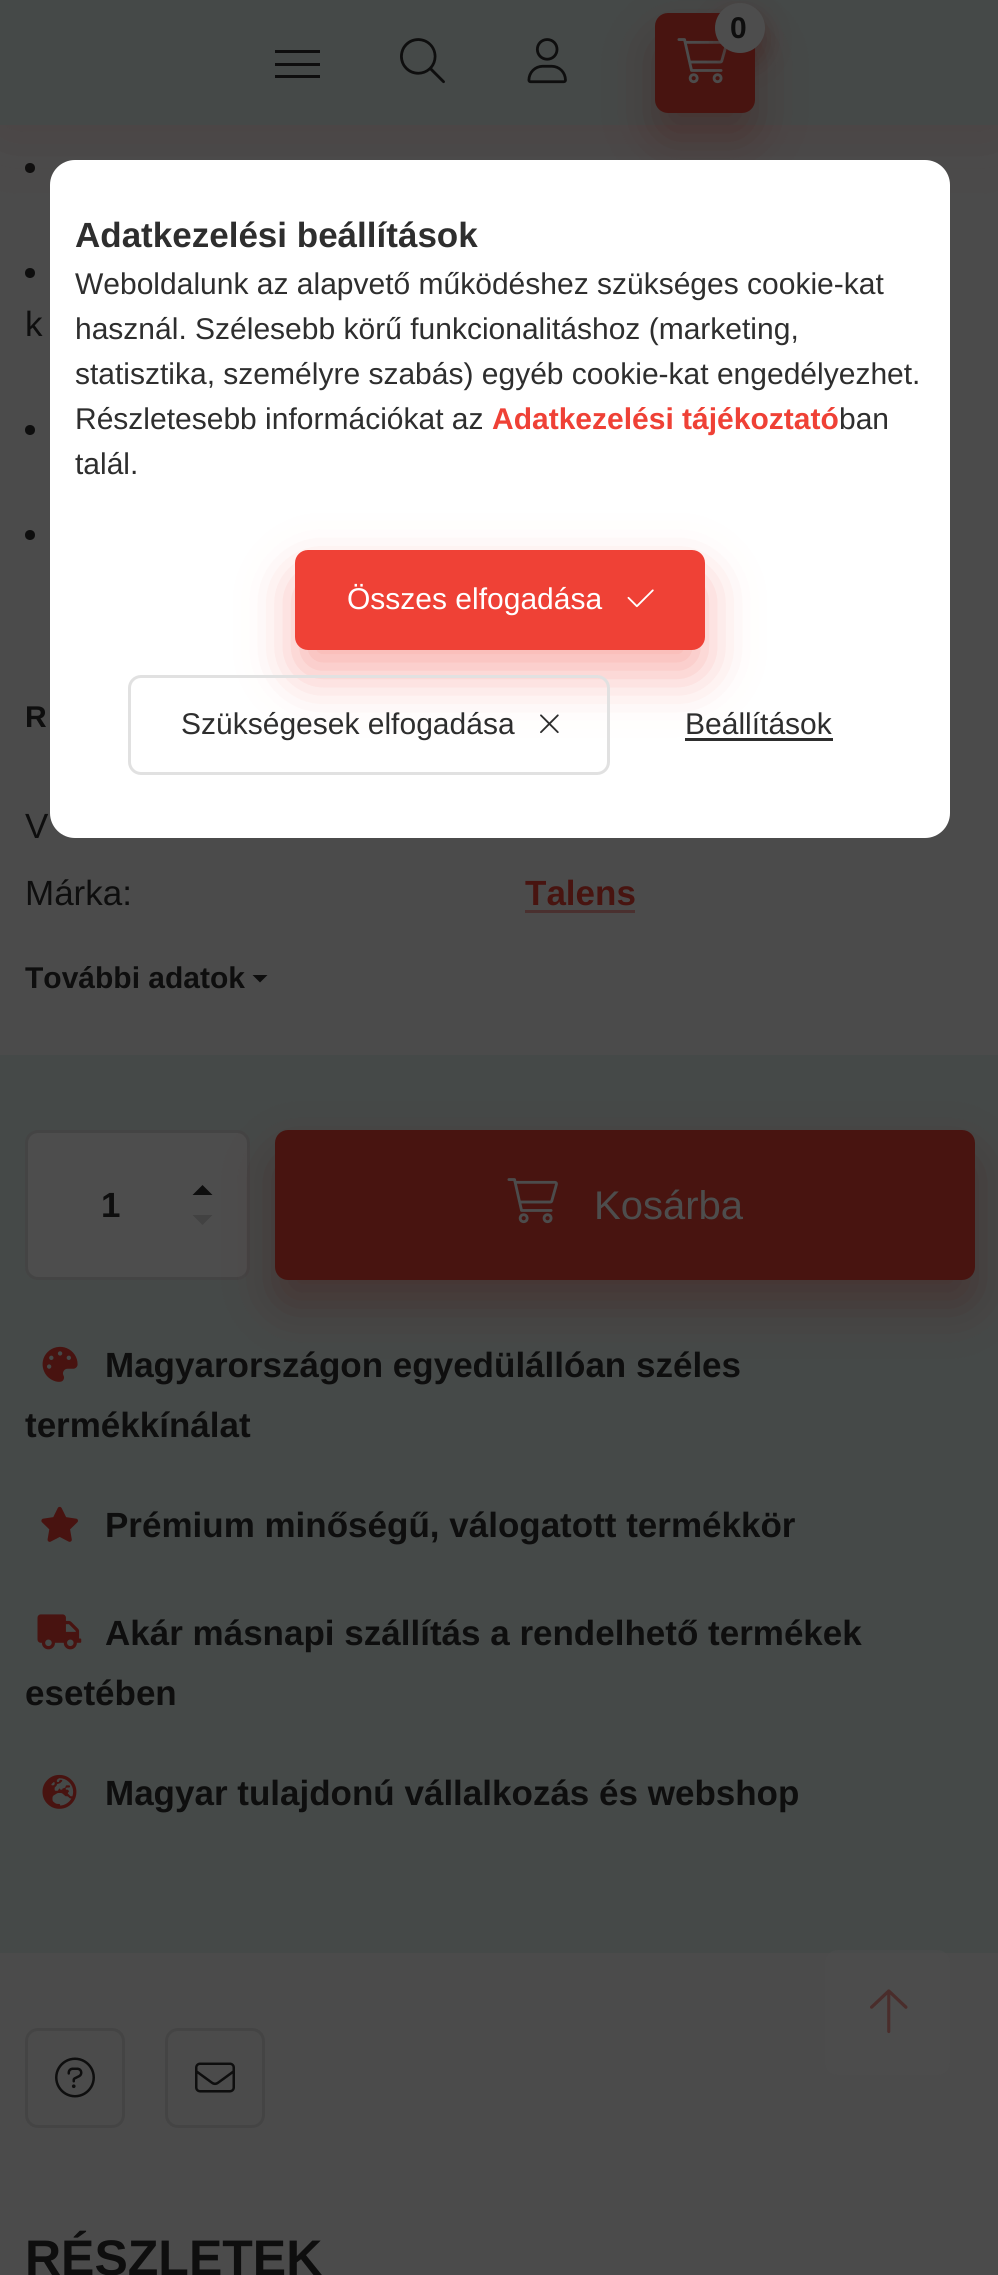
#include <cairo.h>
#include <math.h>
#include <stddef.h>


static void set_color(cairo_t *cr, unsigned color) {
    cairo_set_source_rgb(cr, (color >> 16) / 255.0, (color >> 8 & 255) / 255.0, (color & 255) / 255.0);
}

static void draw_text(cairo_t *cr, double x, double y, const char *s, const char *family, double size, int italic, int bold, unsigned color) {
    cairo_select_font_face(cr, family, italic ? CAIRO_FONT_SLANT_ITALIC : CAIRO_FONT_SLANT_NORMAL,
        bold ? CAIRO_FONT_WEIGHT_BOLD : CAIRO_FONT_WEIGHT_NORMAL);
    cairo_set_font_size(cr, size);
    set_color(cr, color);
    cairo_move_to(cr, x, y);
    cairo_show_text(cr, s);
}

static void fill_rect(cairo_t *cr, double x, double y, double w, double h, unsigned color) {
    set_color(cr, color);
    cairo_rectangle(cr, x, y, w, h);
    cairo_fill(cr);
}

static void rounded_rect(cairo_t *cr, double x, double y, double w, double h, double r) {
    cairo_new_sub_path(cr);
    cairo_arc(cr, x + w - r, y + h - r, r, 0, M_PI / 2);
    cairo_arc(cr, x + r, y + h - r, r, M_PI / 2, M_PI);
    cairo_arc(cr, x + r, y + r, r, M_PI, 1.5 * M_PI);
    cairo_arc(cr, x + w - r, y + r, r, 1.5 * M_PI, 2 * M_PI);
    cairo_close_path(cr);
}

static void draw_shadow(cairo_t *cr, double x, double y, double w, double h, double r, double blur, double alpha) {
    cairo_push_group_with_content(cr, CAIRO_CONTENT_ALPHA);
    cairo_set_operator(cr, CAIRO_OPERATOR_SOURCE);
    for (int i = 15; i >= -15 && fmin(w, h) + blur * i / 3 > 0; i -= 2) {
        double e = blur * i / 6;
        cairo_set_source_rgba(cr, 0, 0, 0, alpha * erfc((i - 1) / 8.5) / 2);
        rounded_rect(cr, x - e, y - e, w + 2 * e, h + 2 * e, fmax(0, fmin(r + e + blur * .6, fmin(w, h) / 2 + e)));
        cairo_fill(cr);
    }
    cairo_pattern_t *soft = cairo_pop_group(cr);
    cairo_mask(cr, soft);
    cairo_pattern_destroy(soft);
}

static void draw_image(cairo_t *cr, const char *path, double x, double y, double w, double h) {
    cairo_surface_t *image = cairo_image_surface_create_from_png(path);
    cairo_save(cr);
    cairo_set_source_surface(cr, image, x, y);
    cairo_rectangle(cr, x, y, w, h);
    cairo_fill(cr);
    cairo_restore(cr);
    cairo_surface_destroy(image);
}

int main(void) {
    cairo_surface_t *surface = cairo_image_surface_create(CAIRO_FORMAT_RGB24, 998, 2275);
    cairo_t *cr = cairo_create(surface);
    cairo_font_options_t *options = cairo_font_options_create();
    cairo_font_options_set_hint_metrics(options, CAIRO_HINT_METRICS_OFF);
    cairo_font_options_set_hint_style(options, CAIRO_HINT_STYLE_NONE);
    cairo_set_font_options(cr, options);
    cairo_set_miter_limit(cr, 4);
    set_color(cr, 0x4B4B4B);
    cairo_paint(cr);
    set_color(cr, 0x0E0E0E);
    cairo_arc(cr, 30, 168, 5, 0, 2 * M_PI);
    cairo_fill(cr);
    set_color(cr, 0x481410);
    draw_shadow(cr, 0, 0, 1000, 125, 0, 37.5, 0.2);
    fill_rect(cr, 0, 0, 998, 125, 0x454948);
    set_color(cr, 0x481410);
    draw_shadow(cr, 655, 38, 100, 100, 13, 25, 0.4);
    set_color(cr, 0x481410);
    rounded_rect(cr, 655, 13, 100, 100, 13);
    cairo_fill(cr);
    draw_image(cr, "assets/img1.png", 677, 38, 50, 46);
    set_color(cr, 0x481410);
    draw_shadow(cr, 715, 15, 50, 50, 25, 12.5, 0.4);
    set_color(cr, 0x4D4D4D);
    cairo_arc(cr, 740, 28, 25, 0, 2 * M_PI);
    cairo_fill(cr);
    draw_text(cr, 730, 38, "0", "Liberation Sans", 30, 0, 1, 0x0E0E0E);
    fill_rect(cr, 275, 50, 45, 3, 0x0E0E0E);
    fill_rect(cr, 275, 63, 45, 3, 0x0E0E0E);
    fill_rect(cr, 275, 75, 45, 3, 0x0E0E0E);
    draw_image(cr, "assets/img2.png", 400, 38, 45, 46);
    draw_image(cr, "assets/img3.png", 527, 38, 40, 46);
    cairo_arc(cr, 30, 273, 5, 0, 2 * M_PI);
    cairo_fill(cr);
    draw_text(cr, 25, 336, "k", "Liberation Sans", 35, 0, 0, 0x0E0E0E);
    cairo_new_path(cr);
    cairo_arc(cr, 30, 430, 5, 0, 2 * M_PI);
    cairo_fill(cr);
    cairo_arc(cr, 30, 535, 5, 0, 2 * M_PI);
    cairo_fill(cr);
    draw_text(cr, 25, 727, "R", "Liberation Sans", 30, 0, 1, 0x0E0E0E);
    draw_text(cr, 25, 838, "V", "Liberation Sans", 35, 0, 0, 0x0E0E0E);
    draw_text(cr, 25, 905, "Márka:", "Liberation Sans", 35, 0, 0, 0x0E0E0E);
    draw_text(cr, 525, 905, "Talens", "Liberation Sans", 35, 0, 1, 0x481410);
    fill_rect(cr, 525, 910, 110, 3, 0x4A302F);
    draw_text(cr, 25, 988, "További adatok", "Liberation Sans", 30, 0, 1, 0x0E0E0E);
    cairo_new_path(cr);
    cairo_move_to(cr, 252.5, 975);
    cairo_line_to(cr, 267.5, 975);
    cairo_line_to(cr, 260, 982.5);
    cairo_close_path(cr);
    cairo_fill(cr);
    fill_rect(cr, 0, 1055, 998, 898, 0x454948);
    set_color(cr, 0x4D4D4D);
    rounded_rect(cr, 26.5, 1131.5, 222, 147, 11.5);
    cairo_fill_preserve(cr);
    set_color(cr, 0x444444);
    cairo_set_line_width(cr, 3);
    cairo_stroke(cr);
    draw_text(cr, 101, 1217, "1", "Liberation Sans", 35, 0, 1, 0x0E0E0E);
    cairo_new_path(cr);
    cairo_move_to(cr, 212.5, 1195);
    cairo_line_to(cr, 192.5, 1195);
    cairo_line_to(cr, 202.5, 1185);
    cairo_close_path(cr);
    cairo_fill(cr);
    set_color(cr, 0x424242);
    cairo_new_path(cr);
    cairo_move_to(cr, 192.5, 1215);
    cairo_line_to(cr, 212.5, 1215);
    cairo_line_to(cr, 202.5, 1225);
    cairo_close_path(cr);
    cairo_fill(cr);
    set_color(cr, 0x481410);
    draw_shadow(cr, 275, 1155, 700, 150, 13, 25, 0.4);
    set_color(cr, 0x481410);
    rounded_rect(cr, 275, 1130, 700, 150, 13);
    cairo_fill(cr);
    draw_image(cr, "assets/img4.png", 507, 1178, 51, 46);
    draw_text(cr, 594, 1219, "Kosárba", "Liberation Sans", 40, 0, 0, 0x4D4D4D);
    draw_image(cr, "assets/img5.png", 42, 1346, 36, 36);
    draw_text(cr, 105, 1377, "Magyarországon egyedülállóan széles", "Liberation Sans", 35, 0, 1, 0x0E0E0E);
    draw_text(cr, 25, 1437, "termékkínálat", "Liberation Sans", 35, 0, 1, 0x0E0E0E);
    draw_image(cr, "assets/img6.png", 41, 1506, 37, 36);
    draw_text(cr, 105, 1537, "Prémium minőségű, válogatott termékkör", "Liberation Sans", 35, 0, 1, 0x0E0E0E);
    draw_image(cr, "assets/img7.png", 37, 1614, 45, 36);
    draw_text(cr, 105, 1645, "Akár másnapi szállítás a rendelhető termékek", "Liberation Sans", 35, 0, 1, 0x0E0E0E);
    draw_text(cr, 25, 1705, "esetében", "Liberation Sans", 35, 0, 1, 0x0E0E0E);
    draw_image(cr, "assets/img8.png", 42, 1774, 35, 35);
    draw_text(cr, 105, 1805, "Magyar tulajdonú vállalkozás és webshop", "Liberation Sans", 35, 0, 1, 0x0E0E0E);
    rounded_rect(cr, 26.5, 2029.5, 97, 97, 11.5);
    set_color(cr, 0x444444);
    cairo_stroke(cr);
    draw_image(cr, "assets/img9.png", 55, 2057, 40, 41);
    rounded_rect(cr, 166.5, 2029.5, 97, 97, 11.5);
    cairo_stroke(cr);
    draw_image(cr, "assets/img10.png", 195, 2062, 40, 31);
    draw_text(cr, 25, 2275, "RÉSZLETEK", "Liberation Sans", 50, 0, 1, 0x0E0E0E);
    set_color(cr, 0xFFFFFF);
    rounded_rect(cr, 50, 160, 900, 678, 25);
    cairo_fill(cr);
    draw_text(cr, 75, 247, "Adatkezelési beállítások", "Liberation Sans", 35, 0, 1, 0x2E2E2E);
    draw_text(cr, 75, 294, "Weboldalunk az alapvető működéshez szükséges cookie-kat", "Liberation Sans", 30, 0, 0, 0x2E2E2E);
    draw_text(cr, 75, 339, "használ. Szélesebb körű funkcionalitáshoz (marketing,", "Liberation Sans", 30, 0, 0, 0x2E2E2E);
    draw_text(cr, 75, 384, "statisztika, személyre szabás) egyéb cookie-kat engedélyezhet.", "Liberation Sans", 30, 0, 0, 0x2E2E2E);
    draw_text(cr, 75, 429, "Részletesebb információkat az", "Liberation Sans", 30, 0, 0, 0x2E2E2E);
    draw_text(cr, 492, 429, "Adatkezelési tájékoztató", "Liberation Sans", 30, 0, 1, 0xEF4136);
    draw_text(cr, 839, 429, "ban", "Liberation Sans", 30, 0, 0, 0x2E2E2E);
    draw_text(cr, 75, 474, "talál.", "Liberation Sans", 30, 0, 0, 0x2E2E2E);
    set_color(cr, 0xEF4136);
    draw_shadow(cr, 295, 575, 410, 100, 13, 25, 0.4);
    set_color(cr, 0xEF4136);
    rounded_rect(cr, 296.5, 551.5, 407, 97, 11.5);
    cairo_fill_preserve(cr);
    cairo_stroke(cr);
    draw_text(cr, 347, 609, "Összes elfogadása", "Liberation Sans", 30, 0, 0, 0xFFFFFF);
    draw_image(cr, "assets/img11.png", 627, 589, 27, 19);
    rounded_rect(cr, 129.5, 676.5, 479, 97, 11.5);
    set_color(cr, 0xE1E1E1);
    cairo_stroke(cr);
    draw_text(cr, 181, 734, "Szükségesek elfogadása", "Liberation Sans", 30, 0, 0, 0x2E2E2E);
    draw_image(cr, "assets/img12.png", 540, 714, 19, 20);
    draw_text(cr, 685, 734, "Beállítások", "Liberation Sans", 30, 0, 0, 0x2E2E2E);
    fill_rect(cr, 685, 738, 148, 3, 0x2E2E2E);
    cairo_set_source_rgba(cr, 0.302, 0.302, 0.302, 0.56);
    rounded_rect(cr, 825, 1950, 125, 125, 13);
    cairo_fill(cr);
    draw_image(cr, "assets/img13.png", 870, 1989, 38, 45);
    cairo_surface_write_to_png(surface, "output.png");
    cairo_font_options_destroy(options);
    cairo_destroy(cr);
    cairo_surface_destroy(surface);
    return 0;
}
